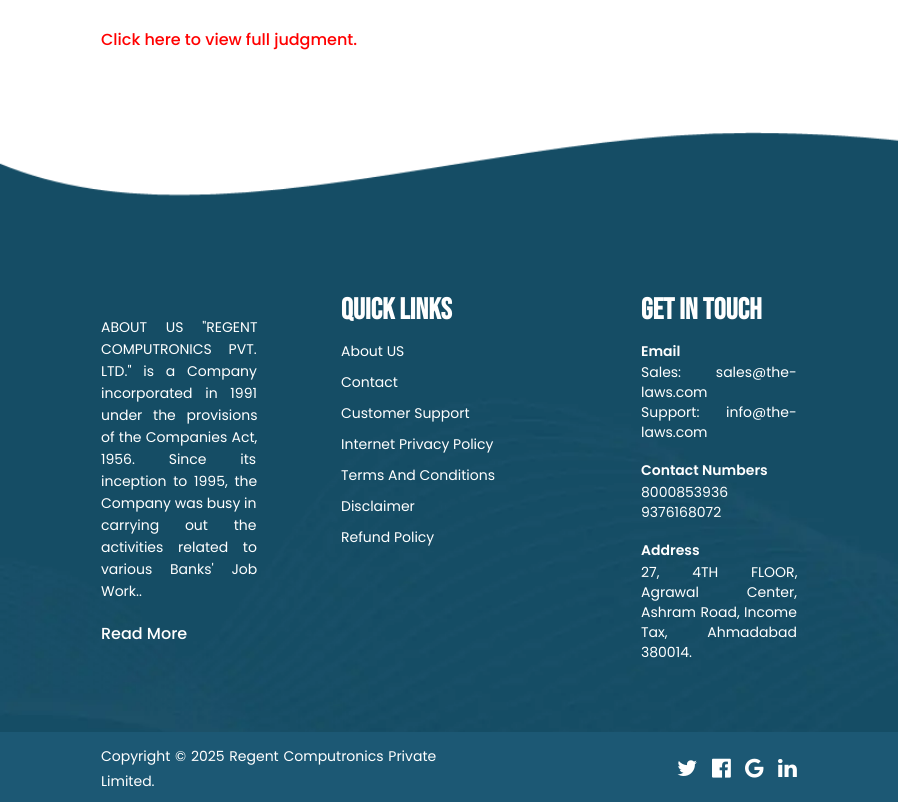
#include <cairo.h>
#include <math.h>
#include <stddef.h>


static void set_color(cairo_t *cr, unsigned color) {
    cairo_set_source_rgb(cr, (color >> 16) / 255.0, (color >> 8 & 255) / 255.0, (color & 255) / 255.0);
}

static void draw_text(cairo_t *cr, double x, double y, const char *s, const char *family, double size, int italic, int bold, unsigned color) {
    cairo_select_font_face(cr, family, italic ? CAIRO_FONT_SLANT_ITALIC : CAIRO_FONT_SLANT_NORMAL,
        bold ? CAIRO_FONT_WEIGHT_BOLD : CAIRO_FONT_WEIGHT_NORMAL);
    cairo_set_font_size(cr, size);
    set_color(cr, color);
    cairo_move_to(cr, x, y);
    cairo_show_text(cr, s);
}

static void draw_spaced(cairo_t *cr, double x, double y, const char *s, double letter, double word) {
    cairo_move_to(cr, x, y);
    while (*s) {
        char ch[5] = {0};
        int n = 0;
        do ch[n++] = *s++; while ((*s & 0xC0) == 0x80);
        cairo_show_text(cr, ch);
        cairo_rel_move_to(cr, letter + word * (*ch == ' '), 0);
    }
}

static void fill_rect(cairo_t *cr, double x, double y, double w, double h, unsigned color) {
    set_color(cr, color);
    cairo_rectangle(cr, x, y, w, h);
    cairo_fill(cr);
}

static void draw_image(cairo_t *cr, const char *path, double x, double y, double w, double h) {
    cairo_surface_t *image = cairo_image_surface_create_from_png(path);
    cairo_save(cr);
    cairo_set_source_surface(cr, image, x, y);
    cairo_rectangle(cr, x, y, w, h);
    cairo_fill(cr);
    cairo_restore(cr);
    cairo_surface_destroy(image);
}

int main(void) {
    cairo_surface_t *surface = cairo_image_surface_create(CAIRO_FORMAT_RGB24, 898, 802);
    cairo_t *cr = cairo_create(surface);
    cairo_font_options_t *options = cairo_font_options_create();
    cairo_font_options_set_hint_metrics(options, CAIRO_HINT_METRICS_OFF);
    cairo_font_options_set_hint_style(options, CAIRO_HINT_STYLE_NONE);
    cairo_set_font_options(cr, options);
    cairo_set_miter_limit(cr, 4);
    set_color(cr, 0xFFFFFF);
    cairo_paint(cr);
    draw_text(cr, 101, 45, "Click here to view full judgment.", "Poppins Medium", 16, 0, 0, 0xFF0000);
    draw_image(cr, "assets/img1.png", 0, 132, 898, 600);
    cairo_select_font_face(cr, "Poppins", CAIRO_FONT_SLANT_NORMAL, CAIRO_FONT_WEIGHT_NORMAL);
    cairo_set_font_size(cr, 14);
    set_color(cr, 0xFFFFFF);
    draw_spaced(cr, 101, 332, "ABOUT US \"REGENT", 0, 15);
    draw_spaced(cr, 101, 354, "COMPUTRONICS PVT.", 0, 13);
    draw_spaced(cr, 101, 376, "LTD.\" is a Company", 0, 8);
    draw_spaced(cr, 101, 398, "incorporated in 1991", 0, 9);
    draw_spaced(cr, 101, 420, "under the provisions", 0, 7);
    draw_spaced(cr, 101, 442, "of the Companies Act,", 0, 0.5);
    draw_spaced(cr, 101, 464, "1956. Since its", 0, 30);
    draw_spaced(cr, 101, 486, "inception to 1995, the", 0, 3);
    draw_text(cr, 101, 508, "Company was busy in", "Poppins", 14, 0, 0, 0xFFFFFF);
    draw_spaced(cr, 101, 530, "carrying out the", 0, 22);
    draw_spaced(cr, 101, 552, "activities related to", 0, 11);
    draw_spaced(cr, 101, 574, "various Banks' Job", 0, 14);
    draw_text(cr, 101, 596, "Work..", "Poppins", 14, 0, 0, 0xFFFFFF);
    draw_text(cr, 101, 639, "Read More", "Poppins Medium", 16, 0, 0, 0xFFFFFF);
    draw_text(cr, 341, 319, "QUICK LINKS", "Bebas Neue", 30, 0, 1, 0xFFFFFF);
    draw_text(cr, 341, 356, "About US", "Poppins", 14, 0, 0, 0xFFFFFF);
    draw_text(cr, 341, 387, "Contact", "Poppins", 14, 0, 0, 0xFFFFFF);
    draw_text(cr, 341, 418, "Customer Support", "Poppins", 14, 0, 0, 0xFFFFFF);
    draw_text(cr, 341, 449, "Internet Privacy Policy", "Poppins", 14, 0, 0, 0xFFFFFF);
    draw_text(cr, 341, 480, "Terms And Conditions", "Poppins", 14, 0, 0, 0xFFFFFF);
    draw_text(cr, 341, 511, "Disclaimer", "Poppins", 14, 0, 0, 0xFFFFFF);
    draw_text(cr, 341, 542, "Refund Policy", "Poppins", 14, 0, 0, 0xFFFFFF);
    draw_text(cr, 641, 319, "GET IN TOUCH", "Bebas Neue", 30, 0, 1, 0xFFFFFF);
    draw_text(cr, 641, 356, "Email", "Poppins SemiBold", 14, 0, 0, 0xFFFFFF);
    cairo_select_font_face(cr, "Poppins", CAIRO_FONT_SLANT_NORMAL, CAIRO_FONT_WEIGHT_NORMAL);
    draw_spaced(cr, 641, 377, "Sales: sales@the-", 0, 31);
    draw_text(cr, 641, 397, "laws.com", "Poppins", 14, 0, 0, 0xFFFFFF);
    draw_spaced(cr, 641, 417, "Support: info@the-", 0, 23);
    draw_text(cr, 641, 437, "laws.com", "Poppins", 14, 0, 0, 0xFFFFFF);
    draw_text(cr, 641, 475, "Contact Numbers", "Poppins SemiBold", 14, 0, 0, 0xFFFFFF);
    draw_text(cr, 641, 497, "8000853936", "Poppins", 14, 0, 0, 0xFFFFFF);
    draw_text(cr, 641, 517, "9376168072", "Poppins", 14, 0, 0, 0xFFFFFF);
    draw_text(cr, 641, 555, "Address", "Poppins SemiBold", 14, 0, 0, 0xFFFFFF);
    cairo_select_font_face(cr, "Poppins", CAIRO_FONT_SLANT_NORMAL, CAIRO_FONT_WEIGHT_NORMAL);
    draw_spaced(cr, 641, 577, "27, 4TH FLOOR,", 0, 29);
    draw_spaced(cr, 641, 597, "Agrawal Center,", 0, 44);
    draw_spaced(cr, 641, 617, "Ashram Road,", 0, 1);
    draw_text(cr, 744, 617, "Income", "Poppins", 14, 0, 0, 0xFFFFFF);
    draw_spaced(cr, 641, 637, "Tax, Ahmadabad", 0, 36);
    draw_text(cr, 641, 657, "380014.", "Poppins", 14, 0, 0, 0xFFFFFF);
    fill_rect(cr, 0, 732, 898, 70, 0x1C5874);
    set_color(cr, 0xFFFFFF);
    draw_spaced(cr, 101, 761, "Copyright © 2025 Regent Computronics Private", 0, 1);
    draw_text(cr, 101, 786, "Limited.", "Poppins", 14, 0, 0, 0xFFFFFF);
    draw_image(cr, "assets/img2.png", 677, 760, 20, 16);
    draw_image(cr, "assets/img3.png", 712, 758, 19, 20);
    draw_image(cr, "assets/img4.png", 745, 758, 19, 20);
    draw_image(cr, "assets/img5.png", 778, 759, 19, 18);
    cairo_surface_write_to_png(surface, "output.png");
    cairo_font_options_destroy(options);
    cairo_destroy(cr);
    cairo_surface_destroy(surface);
    return 0;
}
